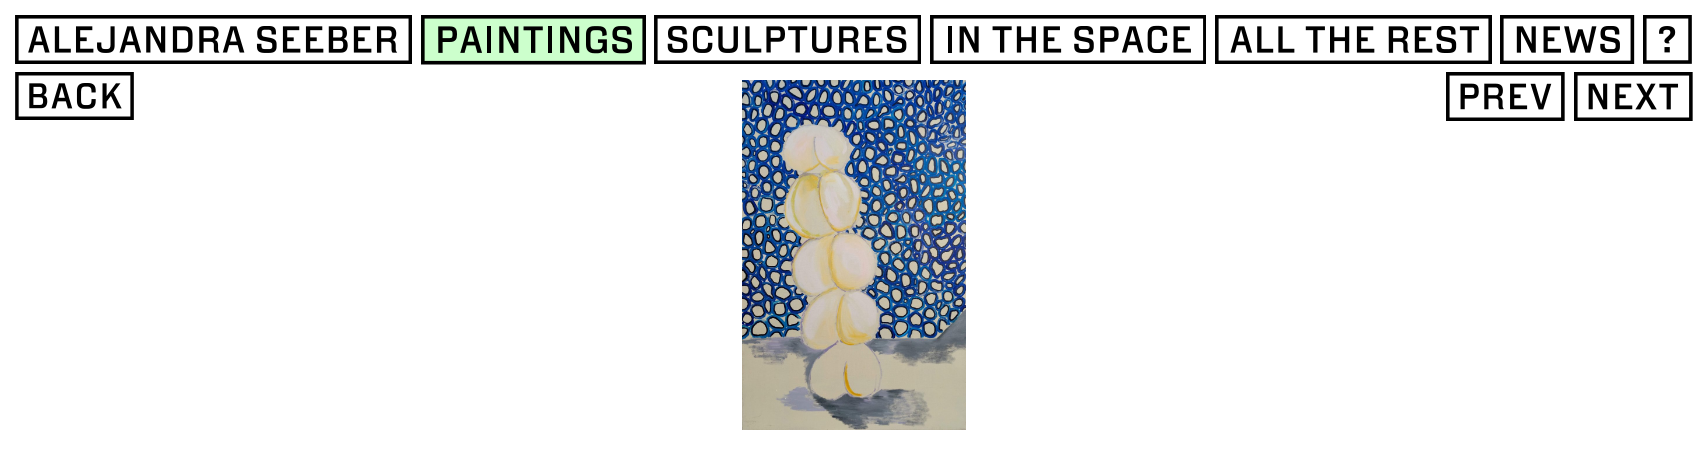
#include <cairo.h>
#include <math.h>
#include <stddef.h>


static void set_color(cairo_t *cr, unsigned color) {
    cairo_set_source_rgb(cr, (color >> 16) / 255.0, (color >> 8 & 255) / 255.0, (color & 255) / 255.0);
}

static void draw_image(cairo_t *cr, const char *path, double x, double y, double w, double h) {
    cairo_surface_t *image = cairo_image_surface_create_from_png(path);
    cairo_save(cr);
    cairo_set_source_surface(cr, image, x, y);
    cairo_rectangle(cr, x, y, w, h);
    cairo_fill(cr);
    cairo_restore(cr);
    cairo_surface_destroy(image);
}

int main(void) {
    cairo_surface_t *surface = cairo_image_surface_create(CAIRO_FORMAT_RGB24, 1708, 466);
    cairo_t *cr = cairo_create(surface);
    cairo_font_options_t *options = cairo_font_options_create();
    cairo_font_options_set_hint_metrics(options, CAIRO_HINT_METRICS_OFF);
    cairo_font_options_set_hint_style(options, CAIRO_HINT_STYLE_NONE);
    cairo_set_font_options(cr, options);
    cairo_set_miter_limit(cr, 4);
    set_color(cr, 0xFFFFFF);
    cairo_paint(cr);
    draw_image(cr, "assets/img1.png", 15, 15, 397, 49);
    draw_image(cr, "assets/img2.png", 421, 15, 225, 50);
    draw_image(cr, "assets/img3.png", 654, 15, 267, 49);
    draw_image(cr, "assets/img4.png", 930, 15, 276, 49);
    draw_image(cr, "assets/img5.png", 1215, 15, 277, 49);
    draw_image(cr, "assets/img6.png", 1500, 15, 135, 49);
    draw_image(cr, "assets/img7.png", 1643, 15, 49, 49);
    draw_image(cr, "assets/img8.png", 15, 72, 119, 48);
    draw_image(cr, "assets/img9.png", 742, 80, 224, 350);
    draw_image(cr, "assets/img10.png", 1446, 72, 119, 49);
    draw_image(cr, "assets/img11.png", 1574, 72, 119, 49);
    cairo_surface_write_to_png(surface, "output.png");
    cairo_font_options_destroy(options);
    cairo_destroy(cr);
    cairo_surface_destroy(surface);
    return 0;
}
